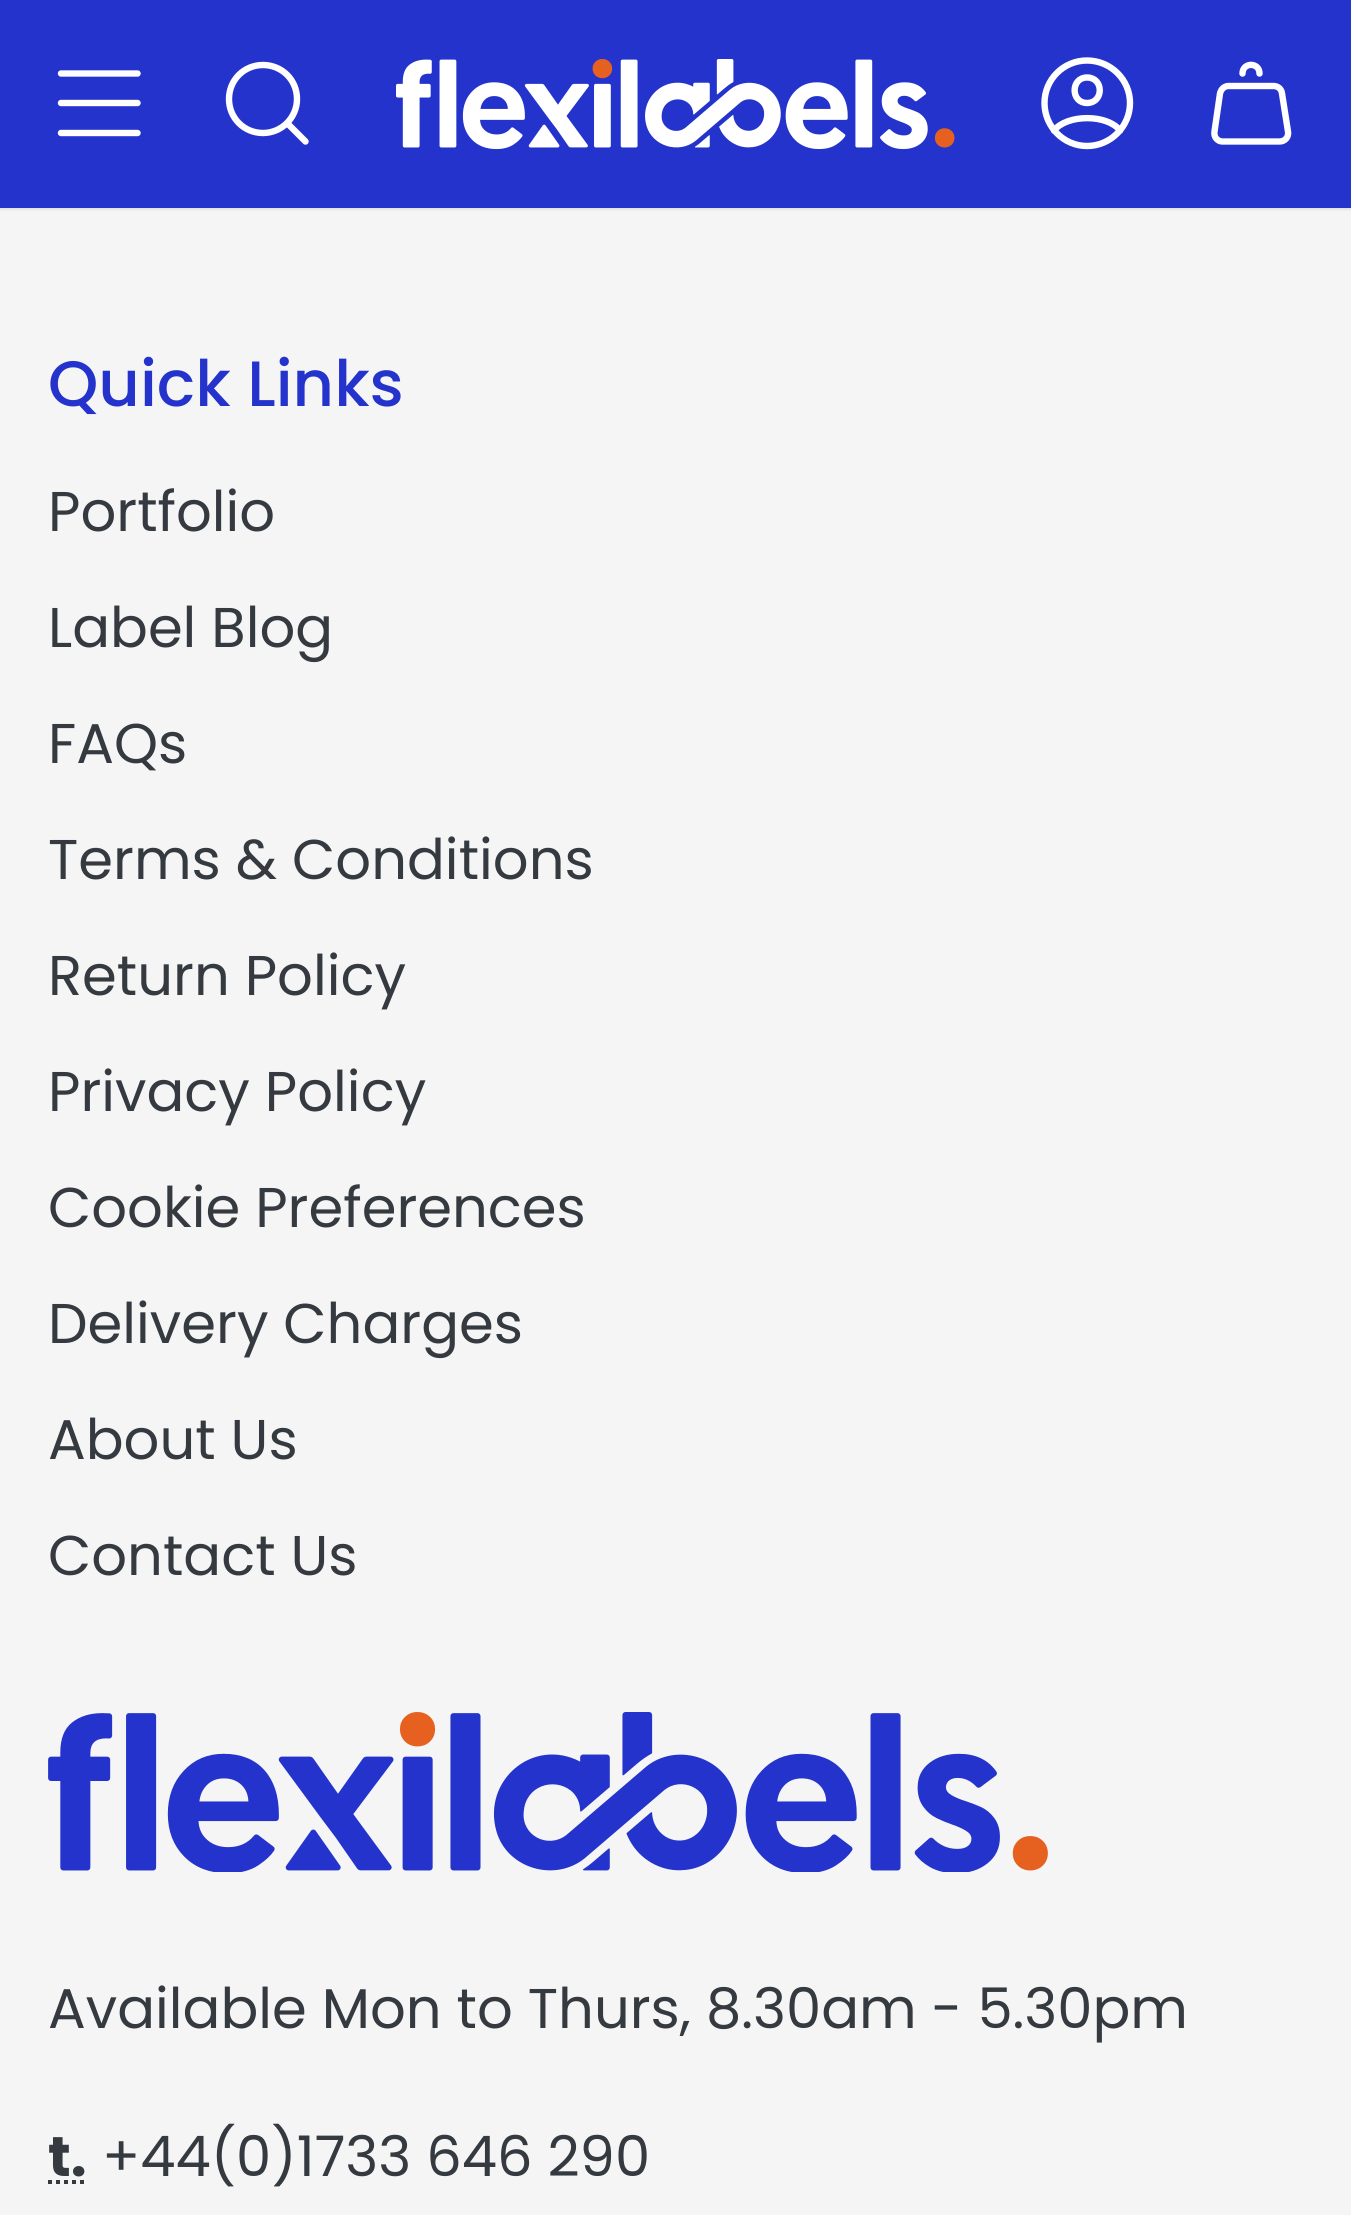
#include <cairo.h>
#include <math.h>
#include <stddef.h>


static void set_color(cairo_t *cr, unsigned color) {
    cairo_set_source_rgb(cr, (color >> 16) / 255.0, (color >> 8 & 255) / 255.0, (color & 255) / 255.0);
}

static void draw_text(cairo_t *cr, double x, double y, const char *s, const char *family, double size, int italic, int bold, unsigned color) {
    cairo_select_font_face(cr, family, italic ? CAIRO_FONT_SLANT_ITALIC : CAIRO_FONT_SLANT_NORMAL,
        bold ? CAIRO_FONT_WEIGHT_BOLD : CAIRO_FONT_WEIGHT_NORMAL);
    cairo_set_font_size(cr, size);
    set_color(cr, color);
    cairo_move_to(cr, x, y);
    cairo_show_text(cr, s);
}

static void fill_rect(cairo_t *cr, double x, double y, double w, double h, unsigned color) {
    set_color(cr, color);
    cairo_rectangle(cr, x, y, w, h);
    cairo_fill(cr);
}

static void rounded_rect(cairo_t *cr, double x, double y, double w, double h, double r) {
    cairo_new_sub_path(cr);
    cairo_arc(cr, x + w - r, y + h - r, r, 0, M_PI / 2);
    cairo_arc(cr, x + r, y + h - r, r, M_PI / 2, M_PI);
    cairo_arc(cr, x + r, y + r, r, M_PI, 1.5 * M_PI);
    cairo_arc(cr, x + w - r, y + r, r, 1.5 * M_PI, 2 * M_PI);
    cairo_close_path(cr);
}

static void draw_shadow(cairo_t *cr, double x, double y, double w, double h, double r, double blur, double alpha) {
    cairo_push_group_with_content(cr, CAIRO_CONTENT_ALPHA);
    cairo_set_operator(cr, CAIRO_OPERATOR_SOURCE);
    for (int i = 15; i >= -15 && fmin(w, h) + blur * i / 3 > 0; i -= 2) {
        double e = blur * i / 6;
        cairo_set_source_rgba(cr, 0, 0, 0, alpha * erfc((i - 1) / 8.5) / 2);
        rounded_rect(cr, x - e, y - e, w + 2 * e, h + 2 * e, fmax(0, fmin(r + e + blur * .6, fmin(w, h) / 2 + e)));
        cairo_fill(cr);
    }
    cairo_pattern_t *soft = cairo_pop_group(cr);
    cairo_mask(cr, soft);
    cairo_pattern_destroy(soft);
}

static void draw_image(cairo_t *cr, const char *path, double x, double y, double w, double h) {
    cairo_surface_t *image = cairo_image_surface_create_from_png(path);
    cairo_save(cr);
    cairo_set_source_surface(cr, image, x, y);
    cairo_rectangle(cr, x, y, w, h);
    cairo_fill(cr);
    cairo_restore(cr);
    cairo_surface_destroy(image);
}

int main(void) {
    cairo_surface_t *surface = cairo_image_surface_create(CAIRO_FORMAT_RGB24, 1351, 2215);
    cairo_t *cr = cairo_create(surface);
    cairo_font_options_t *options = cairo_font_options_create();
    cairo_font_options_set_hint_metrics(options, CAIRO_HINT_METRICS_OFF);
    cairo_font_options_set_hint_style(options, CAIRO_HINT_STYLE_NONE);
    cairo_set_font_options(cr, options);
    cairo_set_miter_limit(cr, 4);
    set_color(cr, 0xF5F5F5);
    cairo_paint(cr);
    set_color(cr, 0x000000);
    draw_shadow(cr, 0, 0, 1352, 208, 0, 2, 0.2);
    fill_rect(cr, 0, 0, 1351, 208, 0x2433CB);
    cairo_new_path(cr);
    cairo_move_to(cr, 61, 73.5);
    cairo_line_to(cr, 137.5, 73.5);
    set_color(cr, 0xFFFFFF);
    cairo_set_line_width(cr, 6.4);
    cairo_set_line_cap(cr, CAIRO_LINE_CAP_ROUND);
    cairo_set_line_join(cr, CAIRO_LINE_JOIN_ROUND);
    cairo_stroke(cr);
    cairo_new_path(cr);
    cairo_move_to(cr, 61, 103);
    cairo_line_to(cr, 137.5, 103);
    cairo_stroke(cr);
    cairo_new_path(cr);
    cairo_move_to(cr, 61, 133);
    cairo_line_to(cr, 137.5, 133);
    cairo_stroke(cr);
    cairo_new_path(cr);
    cairo_move_to(cr, 288.5, 124.5);
    cairo_line_to(cr, 305.5, 141.5);
    cairo_stroke(cr);
    cairo_new_path(cr);
    cairo_move_to(cr, 229, 99);
    cairo_curve_to(cr, 229, 118, 244, 133, 263, 133);
    cairo_curve_to(cr, 272.5, 133, 281, 129, 287, 123);
    cairo_curve_to(cr, 293, 117, 297, 108.5, 297, 99);
    cairo_curve_to(cr, 297, 80, 282, 65, 263, 65);
    cairo_curve_to(cr, 244, 65, 229, 80, 229, 99);
    cairo_close_path(cr);
    cairo_stroke(cr);
    draw_image(cr, "assets/img1.png", 396, 59, 559, 91);
    cairo_new_path(cr);
    cairo_move_to(cr, 1087, 60.5);
    cairo_curve_to(cr, 1063.5, 60.5, 1044.5, 79.5, 1044.5, 103);
    cairo_curve_to(cr, 1044.5, 126.5, 1063.5, 146, 1087, 146);
    cairo_curve_to(cr, 1110.5, 146, 1130, 126.5, 1130, 103);
    cairo_curve_to(cr, 1130, 79.5, 1110.5, 60.5, 1087, 60.5);
    cairo_close_path(cr);
    cairo_stroke(cr);
    cairo_new_path(cr);
    cairo_move_to(cr, 1087, 103);
    cairo_curve_to(cr, 1104, 103, 1104, 77.5, 1087, 77.5);
    cairo_curve_to(cr, 1070.5, 77.5, 1070.5, 103, 1087, 103);
    cairo_close_path(cr);
    cairo_stroke(cr);
    cairo_new_path(cr);
    cairo_move_to(cr, 1054, 130.5);
    cairo_curve_to(cr, 1067, 114, 1107.5, 114, 1120, 130.5);
    cairo_stroke(cr);
    cairo_new_path(cr);
    cairo_move_to(cr, 1259.5, 73.5);
    cairo_curve_to(cr, 1259.5, 62, 1242.5, 62, 1242.5, 73.5);
    cairo_stroke(cr);
    cairo_new_path(cr);
    cairo_move_to(cr, 1282, 93.5);
    cairo_line_to(cr, 1288, 131.5);
    cairo_curve_to(cr, 1289, 137, 1285, 141.5, 1279.5, 141.5);
    cairo_line_to(cr, 1222.5, 141.5);
    cairo_curve_to(cr, 1217.5, 141.5, 1213.5, 137, 1214.5, 131.5);
    cairo_line_to(cr, 1220, 93.5);
    cairo_curve_to(cr, 1221, 89, 1224.5, 86, 1228.5, 86);
    cairo_line_to(cr, 1273.5, 86);
    cairo_curve_to(cr, 1278, 86, 1281.5, 89, 1282, 93.5);
    cairo_close_path(cr);
    cairo_stroke(cr);
    draw_text(cr, 48, 406, "Quick Links", "Poppins Medium", 64, 0, 0, 0x2433CB);
    draw_text(cr, 48, 531, "Portfolio", "Poppins", 56, 0, 0, 0x343A40);
    draw_text(cr, 48, 647, "Label Blog", "Poppins", 56, 0, 0, 0x343A40);
    draw_text(cr, 48, 763, "FAQs", "Poppins", 56, 0, 0, 0x343A40);
    draw_text(cr, 48, 879, "Terms & Conditions", "Poppins", 56, 0, 0, 0x343A40);
    draw_text(cr, 48, 995, "Return Policy", "Poppins", 56, 0, 0, 0x343A40);
    draw_text(cr, 48, 1111, "Privacy Policy", "Poppins", 56, 0, 0, 0x343A40);
    draw_text(cr, 48, 1227, "Cookie Preferences", "Poppins", 56, 0, 0, 0x343A40);
    draw_text(cr, 48, 1343, "Delivery Charges", "Poppins", 56, 0, 0, 0x343A40);
    draw_text(cr, 48, 1459, "About Us", "Poppins", 56, 0, 0, 0x343A40);
    draw_text(cr, 48, 1575, "Contact Us", "Poppins", 56, 0, 0, 0x343A40);
    draw_image(cr, "assets/img2.png", 48, 1712, 1000, 160);
    draw_text(cr, 48, 2028, "Available Mon to Thurs, 8.30am - 5.30pm", "Poppins", 56, 0, 0, 0x343A40);
    draw_text(cr, 48, 2176, "t.", "Poppins", 56, 0, 1, 0x343A40);
    cairo_new_path(cr);
    cairo_move_to(cr, 48, 2182);
    cairo_line_to(cr, 86.5, 2182);
    cairo_set_line_width(cr, 4);
    cairo_set_line_cap(cr, CAIRO_LINE_CAP_BUTT);
    cairo_set_line_join(cr, CAIRO_LINE_JOIN_MITER);
    cairo_set_dash(cr, (double[]){4, 4}, 2, 0);
    cairo_stroke(cr);
    draw_text(cr, 102, 2176, "+44(0)1733 646 290", "Poppins", 56, 0, 0, 0x343A40);
    cairo_surface_write_to_png(surface, "output.png");
    cairo_font_options_destroy(options);
    cairo_destroy(cr);
    cairo_surface_destroy(surface);
    return 0;
}
